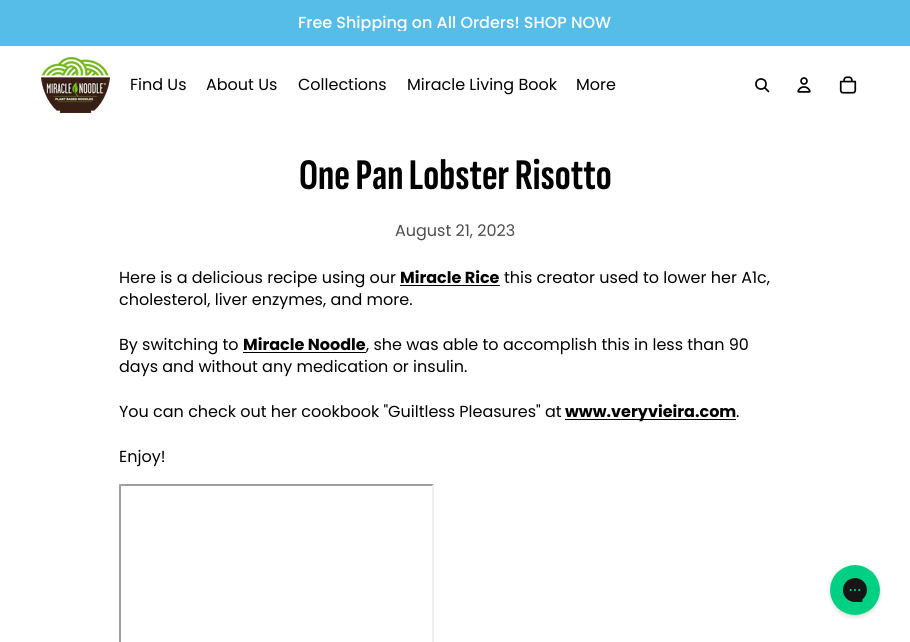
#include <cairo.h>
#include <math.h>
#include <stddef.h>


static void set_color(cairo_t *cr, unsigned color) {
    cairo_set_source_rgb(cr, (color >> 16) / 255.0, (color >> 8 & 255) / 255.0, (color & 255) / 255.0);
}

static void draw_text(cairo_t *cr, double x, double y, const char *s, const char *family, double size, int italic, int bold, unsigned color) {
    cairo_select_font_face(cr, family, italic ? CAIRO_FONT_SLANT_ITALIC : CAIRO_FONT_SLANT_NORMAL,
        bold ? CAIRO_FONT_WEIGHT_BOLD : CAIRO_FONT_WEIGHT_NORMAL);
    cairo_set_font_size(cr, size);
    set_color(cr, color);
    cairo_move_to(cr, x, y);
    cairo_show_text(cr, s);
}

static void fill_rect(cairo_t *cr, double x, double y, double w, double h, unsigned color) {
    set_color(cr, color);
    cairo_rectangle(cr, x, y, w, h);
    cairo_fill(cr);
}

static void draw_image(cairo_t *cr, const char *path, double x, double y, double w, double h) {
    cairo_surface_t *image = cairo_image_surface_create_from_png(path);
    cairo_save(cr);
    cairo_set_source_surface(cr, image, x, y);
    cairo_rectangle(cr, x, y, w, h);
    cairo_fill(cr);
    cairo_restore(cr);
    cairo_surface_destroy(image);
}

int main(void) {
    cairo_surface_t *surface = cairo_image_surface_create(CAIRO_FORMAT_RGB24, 910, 642);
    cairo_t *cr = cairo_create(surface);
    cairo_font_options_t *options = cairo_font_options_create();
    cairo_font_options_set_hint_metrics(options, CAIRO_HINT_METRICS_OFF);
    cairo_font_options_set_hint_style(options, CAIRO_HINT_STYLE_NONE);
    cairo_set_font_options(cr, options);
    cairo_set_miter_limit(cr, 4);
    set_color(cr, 0xFFFFFF);
    cairo_paint(cr);
    fill_rect(cr, 0, 0, 910, 46, 0x56BDE9);
    cairo_save(cr);
    cairo_rectangle(cr, 115, 15, 680, 16);
    cairo_clip(cr);
    draw_text(cr, 298, 28, "Free Shipping on All Orders! SHOP NOW", "Poppins Medium", 16, 0, 0, 0xFFFFFF);
    cairo_restore(cr);
    draw_image(cr, "assets/img1.png", 41, 57, 69, 56);
    draw_text(cr, 130, 90, "Find Us", "Poppins", 16, 0, 0, 0x000000);
    draw_text(cr, 206, 90, "About Us", "Poppins", 16, 0, 0, 0x000000);
    draw_text(cr, 298, 90, "Collections", "Poppins", 16, 0, 0, 0x000000);
    draw_text(cr, 407, 90, "Miracle Living Book", "Poppins", 16, 0, 0, 0x000000);
    draw_text(cr, 576, 90, "More", "Poppins", 16, 0, 0, 0x000000);
    cairo_new_path(cr);
    cairo_arc(cr, 761, 84, 5, 0, 2 * M_PI);
    cairo_set_line_width(cr, 1.7);
    cairo_stroke(cr);
    cairo_new_path(cr);
    cairo_move_to(cr, 765, 88);
    cairo_line_to(cr, 768.5, 91.5);
    cairo_set_line_cap(cr, CAIRO_LINE_CAP_ROUND);
    cairo_set_line_join(cr, CAIRO_LINE_JOIN_ROUND);
    cairo_stroke(cr);
    draw_image(cr, "assets/img2.png", 797, 77, 14, 16);
    draw_image(cr, "assets/img3.png", 839, 76, 18, 18);
    draw_text(cr, 299, 189, "One Pan Lobster Risotto", "Sofia Sans Extra Condensed", 43.75, 0, 1, 0x000000);
    draw_text(cr, 395, 236, "August 21, 2023", "Poppins", 16, 0, 0, 0x4D4D4D);
    draw_text(cr, 119, 283, "Here is a delicious recipe using our", "Poppins", 16, 0, 0, 0x000000);
    fill_rect(cr, 400, 285, 100, 1, 0x000000);
    draw_text(cr, 400, 283, "Miracle Rice", "Poppins", 16, 0, 1, 0x000000);
    draw_text(cr, 504, 283, "this creator used to lower her A1c,", "Poppins", 16, 0, 0, 0x000000);
    draw_text(cr, 119, 305, "cholesterol, liver enzymes, and more.", "Poppins", 16, 0, 0, 0x000000);
    draw_text(cr, 119, 350, "By switching to", "Poppins", 16, 0, 0, 0x000000);
    draw_text(cr, 243, 350, "Miracle Noodle", "Poppins", 16, 0, 1, 0x000000);
    fill_rect(cr, 243, 352, 123, 1, 0x000000);
    draw_text(cr, 366, 350, ", she was able to accomplish this in less than 90", "Poppins", 16, 0, 0, 0x000000);
    draw_text(cr, 119, 372, "days and without any medication or insulin.", "Poppins", 16, 0, 0, 0x000000);
    draw_text(cr, 119, 417, "You can check out her cookbook \"Guiltless Pleasures\" at", "Poppins", 16, 0, 0, 0x000000);
    fill_rect(cr, 565, 419, 171, 1, 0x000000);
    draw_text(cr, 565, 417, "www.veryvieira.com", "Poppins", 16, 0, 1, 0x000000);
    draw_text(cr, 736, 417, ".", "Poppins", 16, 0, 0, 0x000000);
    draw_text(cr, 119, 462, "Enjoy!", "Poppins", 16, 0, 0, 0x000000);
    set_color(cr, 0x9F9F9F);
    cairo_new_path(cr);
    cairo_move_to(cr, 119, 484);
    cairo_line_to(cr, 434, 484);
    cairo_line_to(cr, 432, 486);
    cairo_line_to(cr, 121, 486);
    cairo_close_path(cr);
    cairo_fill(cr);
    cairo_new_path(cr);
    cairo_move_to(cr, 119, 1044);
    cairo_line_to(cr, 119, 484);
    cairo_line_to(cr, 121, 486);
    cairo_line_to(cr, 121, 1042);
    cairo_close_path(cr);
    cairo_fill(cr);
    set_color(cr, 0xEEEEEE);
    cairo_new_path(cr);
    cairo_move_to(cr, 434, 484);
    cairo_line_to(cr, 434, 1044);
    cairo_line_to(cr, 432, 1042);
    cairo_line_to(cr, 432, 486);
    cairo_close_path(cr);
    cairo_fill(cr);
    draw_image(cr, "assets/img4.png", 828, 565, 54, 54);
    cairo_surface_write_to_png(surface, "output.png");
    cairo_font_options_destroy(options);
    cairo_destroy(cr);
    cairo_surface_destroy(surface);
    return 0;
}
